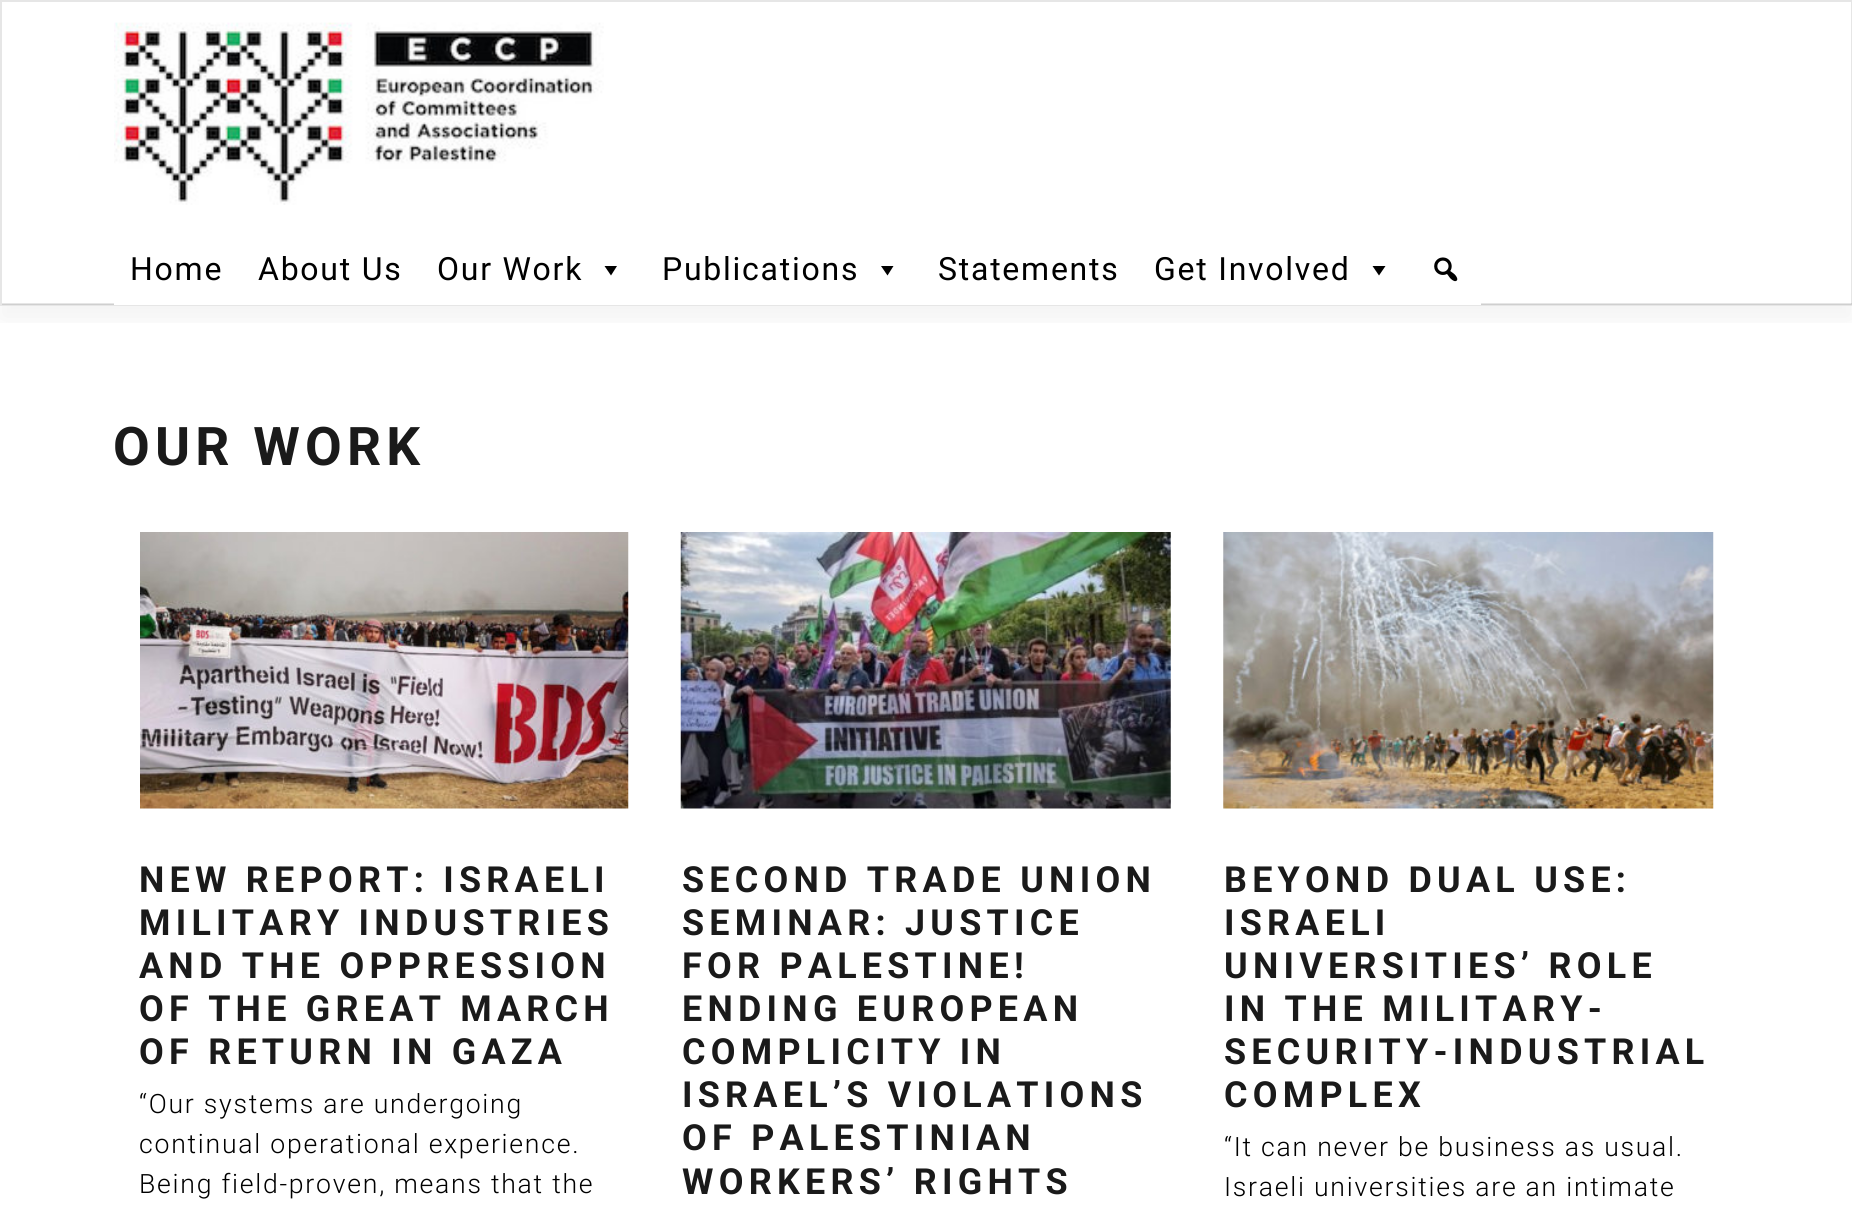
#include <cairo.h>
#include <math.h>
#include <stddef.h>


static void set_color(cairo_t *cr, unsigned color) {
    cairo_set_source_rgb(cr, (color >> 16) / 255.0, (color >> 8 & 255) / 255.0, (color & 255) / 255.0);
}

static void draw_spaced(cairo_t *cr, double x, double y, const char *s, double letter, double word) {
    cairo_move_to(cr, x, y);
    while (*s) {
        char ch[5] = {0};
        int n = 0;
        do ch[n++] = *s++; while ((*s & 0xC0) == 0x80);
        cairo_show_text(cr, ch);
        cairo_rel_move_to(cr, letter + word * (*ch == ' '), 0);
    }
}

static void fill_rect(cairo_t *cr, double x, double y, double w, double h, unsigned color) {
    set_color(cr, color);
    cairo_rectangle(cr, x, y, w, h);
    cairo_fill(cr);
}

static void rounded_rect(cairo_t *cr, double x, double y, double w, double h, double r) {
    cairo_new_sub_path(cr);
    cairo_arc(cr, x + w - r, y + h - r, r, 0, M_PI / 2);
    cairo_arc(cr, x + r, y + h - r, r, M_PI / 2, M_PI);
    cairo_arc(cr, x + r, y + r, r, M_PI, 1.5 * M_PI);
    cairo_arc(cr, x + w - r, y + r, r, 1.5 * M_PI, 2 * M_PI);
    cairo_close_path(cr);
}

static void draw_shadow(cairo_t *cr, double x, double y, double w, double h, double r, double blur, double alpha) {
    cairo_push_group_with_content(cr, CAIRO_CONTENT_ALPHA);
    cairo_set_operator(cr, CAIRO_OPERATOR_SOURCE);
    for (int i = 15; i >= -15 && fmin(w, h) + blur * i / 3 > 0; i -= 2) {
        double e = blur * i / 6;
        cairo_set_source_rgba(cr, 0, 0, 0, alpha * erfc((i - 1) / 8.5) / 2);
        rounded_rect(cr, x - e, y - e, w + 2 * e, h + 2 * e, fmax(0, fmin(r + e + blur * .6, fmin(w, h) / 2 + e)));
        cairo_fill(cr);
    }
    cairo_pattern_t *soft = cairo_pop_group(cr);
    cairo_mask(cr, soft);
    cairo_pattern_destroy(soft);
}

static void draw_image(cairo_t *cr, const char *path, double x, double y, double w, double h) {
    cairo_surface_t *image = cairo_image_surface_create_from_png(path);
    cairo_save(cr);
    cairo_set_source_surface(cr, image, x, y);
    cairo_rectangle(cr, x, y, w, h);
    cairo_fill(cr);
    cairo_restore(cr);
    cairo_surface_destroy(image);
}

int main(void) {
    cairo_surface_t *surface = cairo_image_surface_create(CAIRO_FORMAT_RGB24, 1852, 1209);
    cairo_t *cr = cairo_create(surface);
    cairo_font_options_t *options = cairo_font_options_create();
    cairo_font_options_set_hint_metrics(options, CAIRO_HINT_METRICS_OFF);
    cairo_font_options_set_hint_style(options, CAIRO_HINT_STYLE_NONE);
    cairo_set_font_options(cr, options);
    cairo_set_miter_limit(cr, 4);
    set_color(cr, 0xFFFFFF);
    cairo_paint(cr);
    cairo_save(cr);
    cairo_rectangle(cr, 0, 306, 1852, 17);
    cairo_clip(cr);
    set_color(cr, 0x000000);
    draw_shadow(cr, 0, 14, 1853, 306, 0, 13.5, 0.05);
    cairo_restore(cr);
    fill_rect(cr, 2, 303, 1850, 2, 0xE6E6E6);
    cairo_rectangle(cr, 1, 1, 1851, 304);
    cairo_set_source_rgba(cr, 0, 0, 0, 0.1);
    cairo_stroke(cr);
    draw_image(cr, "assets/img1.png", 114, 22, 490, 183);
    fill_rect(cr, 114, 303, 1367, 2, 0xFFFFFF);
    cairo_select_font_face(cr, "Roboto", CAIRO_FONT_SLANT_NORMAL, CAIRO_FONT_WEIGHT_NORMAL);
    cairo_set_font_size(cr, 32);
    set_color(cr, 0x000000);
    draw_spaced(cr, 130, 280, "Home", 1.75, 0);
    draw_spaced(cr, 258, 280, "About Us", 1.75, 0);
    draw_spaced(cr, 437, 280, "Our Work", 1.75, 0);
    cairo_new_path(cr);
    cairo_move_to(cr, 617, 266);
    cairo_line_to(cr, 611, 275.5);
    cairo_line_to(cr, 604.5, 266);
    cairo_close_path(cr);
    cairo_fill(cr);
    draw_spaced(cr, 662, 280, "Publications", 1.75, 0);
    cairo_new_path(cr);
    cairo_move_to(cr, 893.5, 266);
    cairo_line_to(cr, 887.5, 275.5);
    cairo_line_to(cr, 881, 266);
    cairo_close_path(cr);
    cairo_fill(cr);
    draw_spaced(cr, 938, 280, "Statements", 1.75, 0);
    draw_spaced(cr, 1154, 280, "Get Involved", 1.75, 0);
    cairo_new_path(cr);
    cairo_move_to(cr, 1385.5, 266);
    cairo_line_to(cr, 1379, 275.5);
    cairo_line_to(cr, 1372.5, 266);
    cairo_close_path(cr);
    cairo_fill(cr);
    draw_image(cr, "assets/img2.png", 1434, 257, 24, 25);
    cairo_select_font_face(cr, "Roboto", CAIRO_FONT_SLANT_NORMAL, CAIRO_FONT_WEIGHT_BOLD);
    cairo_set_font_size(cr, 53.25);
    set_color(cr, 0x1A1A1A);
    draw_spaced(cr, 113, 465, "OUR WORK", 5.25, 0);
    draw_image(cr, "assets/img3.png", 140, 532, 489, 277);
    cairo_set_font_size(cr, 35.9);
    draw_spaced(cr, 139, 892, "NEW REPORT: ISRAELI", 5.25, 0);
    draw_spaced(cr, 139, 935, "MILITARY INDUSTRIES", 5.25, 0);
    draw_spaced(cr, 139, 978, "AND THE OPPRESSION", 5.25, 0);
    draw_spaced(cr, 139, 1021, "OF THE GREAT MARCH", 5.25, 0);
    draw_spaced(cr, 139, 1064, "OF RETURN IN GAZA", 5.25, 0);
    cairo_select_font_face(cr, "Roboto Light", CAIRO_FONT_SLANT_NORMAL, CAIRO_FONT_WEIGHT_NORMAL);
    cairo_set_font_size(cr, 26.6);
    set_color(cr, 0x000000);
    draw_spaced(cr, 139, 1113, "“Our systems are undergoing", 1.75, 0);
    draw_spaced(cr, 139, 1153, "continual operational experience.", 1.75, 0);
    draw_spaced(cr, 139, 1193, "Being field-proven, means that the", 1.75, 0);
    draw_image(cr, "assets/img4.png", 680, 532, 491, 277);
    cairo_select_font_face(cr, "Roboto", CAIRO_FONT_SLANT_NORMAL, CAIRO_FONT_WEIGHT_BOLD);
    cairo_set_font_size(cr, 35.9);
    set_color(cr, 0x1A1A1A);
    draw_spaced(cr, 682, 892, "SECOND TRADE UNION", 5.25, 0);
    draw_spaced(cr, 682, 935, "SEMINAR: JUSTICE", 5.25, 0);
    draw_spaced(cr, 682, 978, "FOR PALESTINE!", 5.25, 0);
    draw_spaced(cr, 682, 1021, "ENDING EUROPEAN", 5.25, 0);
    draw_spaced(cr, 682, 1064, "COMPLICITY IN", 5.25, 0);
    draw_spaced(cr, 682, 1107, "ISRAEL’S VIOLATIONS", 5.25, 0);
    draw_spaced(cr, 682, 1150, "OF PALESTINIAN", 5.25, 0);
    draw_spaced(cr, 682, 1194, "WORKERS’ RIGHTS", 5.25, 0);
    draw_image(cr, "assets/img5.png", 1223, 532, 491, 277);
    draw_spaced(cr, 1224, 892, "BEYOND DUAL USE:", 5.25, 0);
    draw_spaced(cr, 1224, 935, "ISRAELI", 5.25, 0);
    draw_spaced(cr, 1224, 978, "UNIVERSITIES’ ROLE", 5.25, 0);
    draw_spaced(cr, 1224, 1021, "IN THE MILITARY-", 5.25, 0);
    draw_spaced(cr, 1224, 1064, "SECURITY-INDUSTRIAL", 5.25, 0);
    draw_spaced(cr, 1224, 1107, "COMPLEX", 5.25, 0);
    cairo_select_font_face(cr, "Roboto Light", CAIRO_FONT_SLANT_NORMAL, CAIRO_FONT_WEIGHT_NORMAL);
    cairo_set_font_size(cr, 26.6);
    set_color(cr, 0x000000);
    draw_spaced(cr, 1224, 1156, "“It can never be business as usual.", 1.75, 0);
    draw_spaced(cr, 1224, 1196, "Israeli universities are an intimate", 1.75, 0);
    cairo_surface_write_to_png(surface, "output.png");
    cairo_font_options_destroy(options);
    cairo_destroy(cr);
    cairo_surface_destroy(surface);
    return 0;
}
